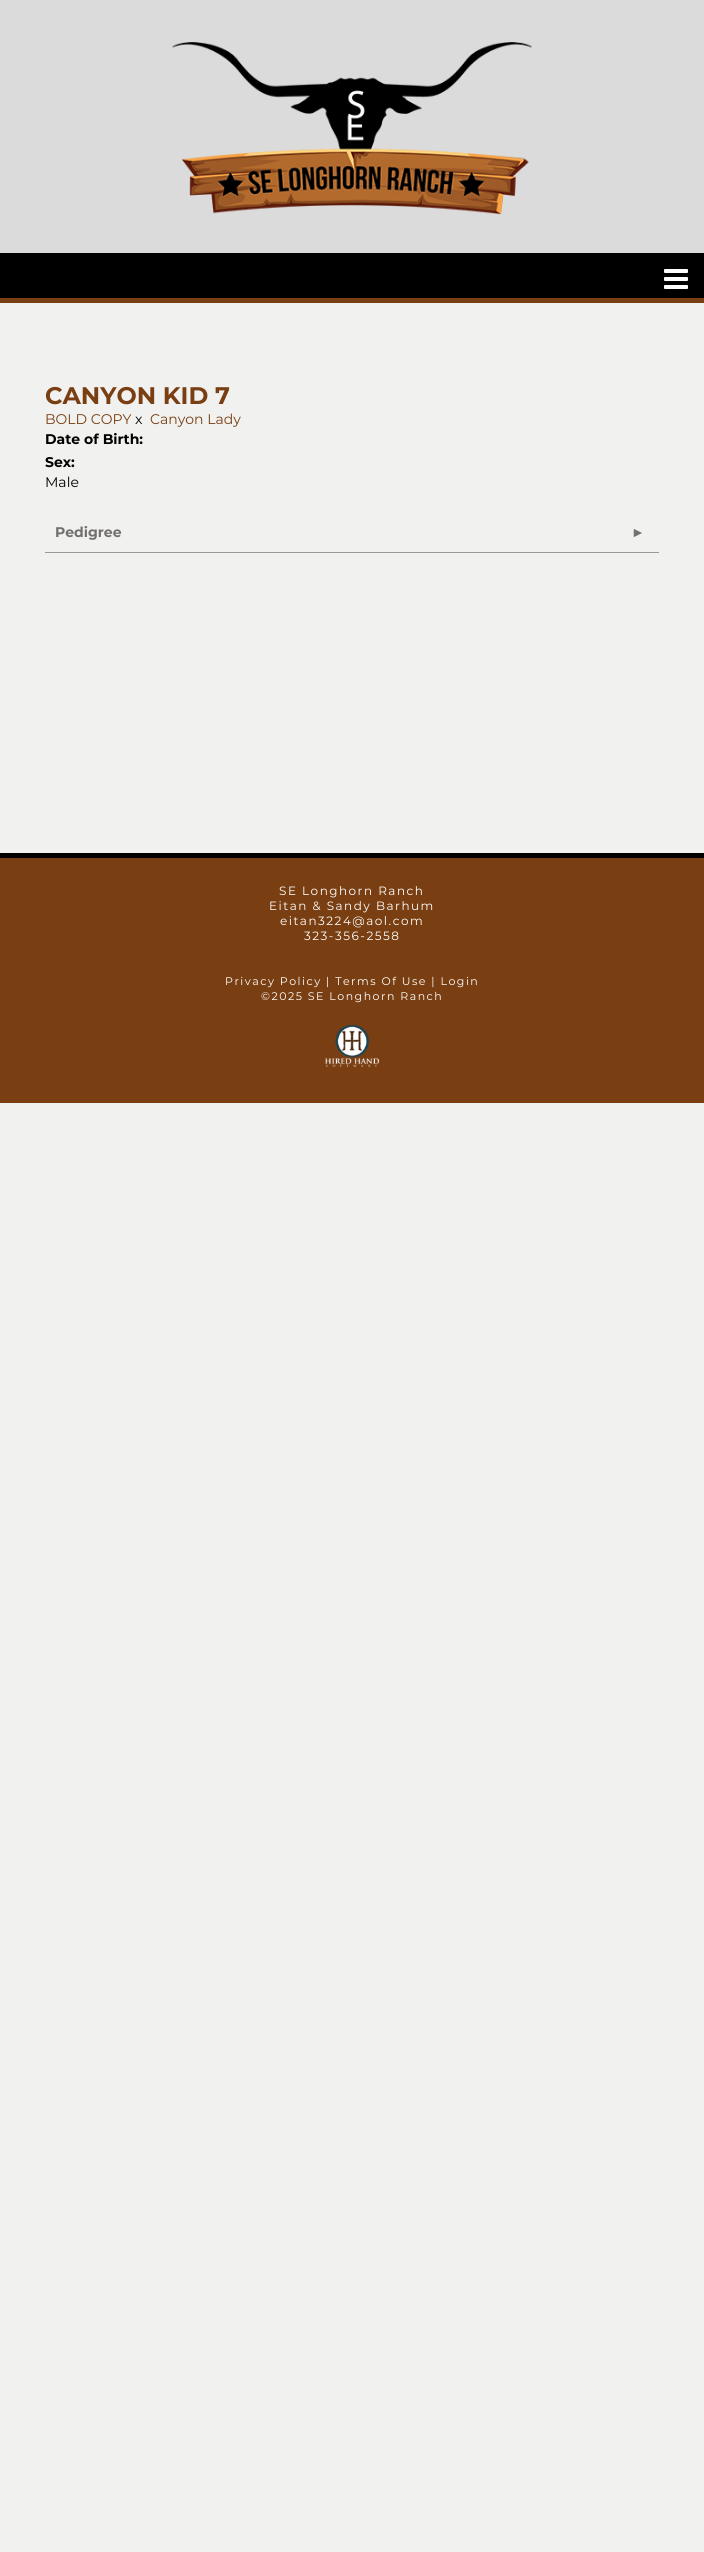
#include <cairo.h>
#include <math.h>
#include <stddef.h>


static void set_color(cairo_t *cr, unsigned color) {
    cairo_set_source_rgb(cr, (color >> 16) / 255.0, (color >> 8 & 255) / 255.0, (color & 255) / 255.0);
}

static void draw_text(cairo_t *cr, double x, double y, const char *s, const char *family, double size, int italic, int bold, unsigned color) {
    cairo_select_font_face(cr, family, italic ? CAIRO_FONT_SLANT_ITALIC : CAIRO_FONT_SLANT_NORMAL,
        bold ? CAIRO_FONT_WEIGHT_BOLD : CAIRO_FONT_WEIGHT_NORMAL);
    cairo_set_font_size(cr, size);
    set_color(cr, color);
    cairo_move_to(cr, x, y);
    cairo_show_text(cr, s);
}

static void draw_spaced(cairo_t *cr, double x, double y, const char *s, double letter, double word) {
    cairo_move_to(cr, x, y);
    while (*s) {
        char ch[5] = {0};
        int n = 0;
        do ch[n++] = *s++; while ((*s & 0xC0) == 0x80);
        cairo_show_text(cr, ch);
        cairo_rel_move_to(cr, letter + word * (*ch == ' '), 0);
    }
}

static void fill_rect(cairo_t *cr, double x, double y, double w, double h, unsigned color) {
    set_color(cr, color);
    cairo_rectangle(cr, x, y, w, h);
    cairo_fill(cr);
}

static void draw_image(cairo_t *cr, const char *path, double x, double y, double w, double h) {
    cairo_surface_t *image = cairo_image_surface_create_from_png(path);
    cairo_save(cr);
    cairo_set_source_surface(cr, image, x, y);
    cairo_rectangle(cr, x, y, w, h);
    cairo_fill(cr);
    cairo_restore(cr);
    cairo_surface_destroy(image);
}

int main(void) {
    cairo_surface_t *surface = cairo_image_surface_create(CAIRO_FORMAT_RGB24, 704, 2552);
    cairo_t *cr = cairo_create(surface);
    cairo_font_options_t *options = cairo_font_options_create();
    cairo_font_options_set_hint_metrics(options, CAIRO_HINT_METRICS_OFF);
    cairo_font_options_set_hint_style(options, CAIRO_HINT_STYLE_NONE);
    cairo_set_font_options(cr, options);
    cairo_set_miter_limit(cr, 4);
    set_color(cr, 0xF1F1EF);
    cairo_paint(cr);
    fill_rect(cr, 0, 0, 704, 253, 0xDBDBDB);
    draw_image(cr, "assets/img1.png", 172, 42, 360, 173);
    fill_rect(cr, 0, 253, 704, 45, 0x000000);
    fill_rect(cr, 0, 298, 704, 5, 0x793F13);
    draw_image(cr, "assets/img2.png", 664, 269, 24, 20);
    draw_text(cr, 45, 404, "CANYON KID 7", "Montserrat", 24, 0, 1, 0x793F13);
    draw_text(cr, 45, 424, "BOLD COPY", "Montserrat", 14, 0, 0, 0x793F13);
    draw_text(cr, 135, 424, "x", "Montserrat", 14, 0, 0, 0x000000);
    draw_text(cr, 150, 424, "Canyon Lady", "Montserrat", 14, 0, 0, 0x793F13);
    draw_text(cr, 45, 444, "Date of Birth:", "Montserrat", 14, 0, 1, 0x000000);
    draw_text(cr, 45, 467, "Sex:", "Montserrat", 14, 0, 1, 0x000000);
    draw_text(cr, 45, 487, "Male", "Montserrat", 14, 0, 0, 0x000000);
    fill_rect(cr, 45, 552, 614, 1, 0x9B9999);
    draw_text(cr, 55, 537, "Pedigree", "Montserrat", 14, 0, 1, 0x726F6F);
    draw_text(cr, 631, 537, "►", "Liberation Sans", 14, 0, 1, 0x726F6F);
    fill_rect(cr, 0, 858, 704, 245, 0x793F13);
    fill_rect(cr, 0, 853, 704, 5, 0x000000);
    cairo_select_font_face(cr, "Montserrat", CAIRO_FONT_SLANT_NORMAL, CAIRO_FONT_WEIGHT_NORMAL);
    cairo_set_font_size(cr, 12);
    set_color(cr, 0xFFFFFF);
    draw_spaced(cr, 279, 895, "SE Longhorn Ranch", 1.5, 0);
    draw_spaced(cr, 269, 910, "Eitan & Sandy Barhum", 1.5, 0);
    draw_spaced(cr, 280, 925, "eitan3224@aol.com", 1.5, 0);
    draw_spaced(cr, 304, 940, "323-356-2558", 1.5, 0);
    cairo_set_font_size(cr, 11);
    draw_spaced(cr, 225, 985, "Privacy Policy | Terms Of Use | Login", 1.5, 0);
    draw_spaced(cr, 261, 1000, "©2025 SE Longhorn Ranch", 1.5, 0);
    draw_image(cr, "assets/img3.png", 325, 1025, 54, 42);
    cairo_surface_write_to_png(surface, "output.png");
    cairo_font_options_destroy(options);
    cairo_destroy(cr);
    cairo_surface_destroy(surface);
    return 0;
}
